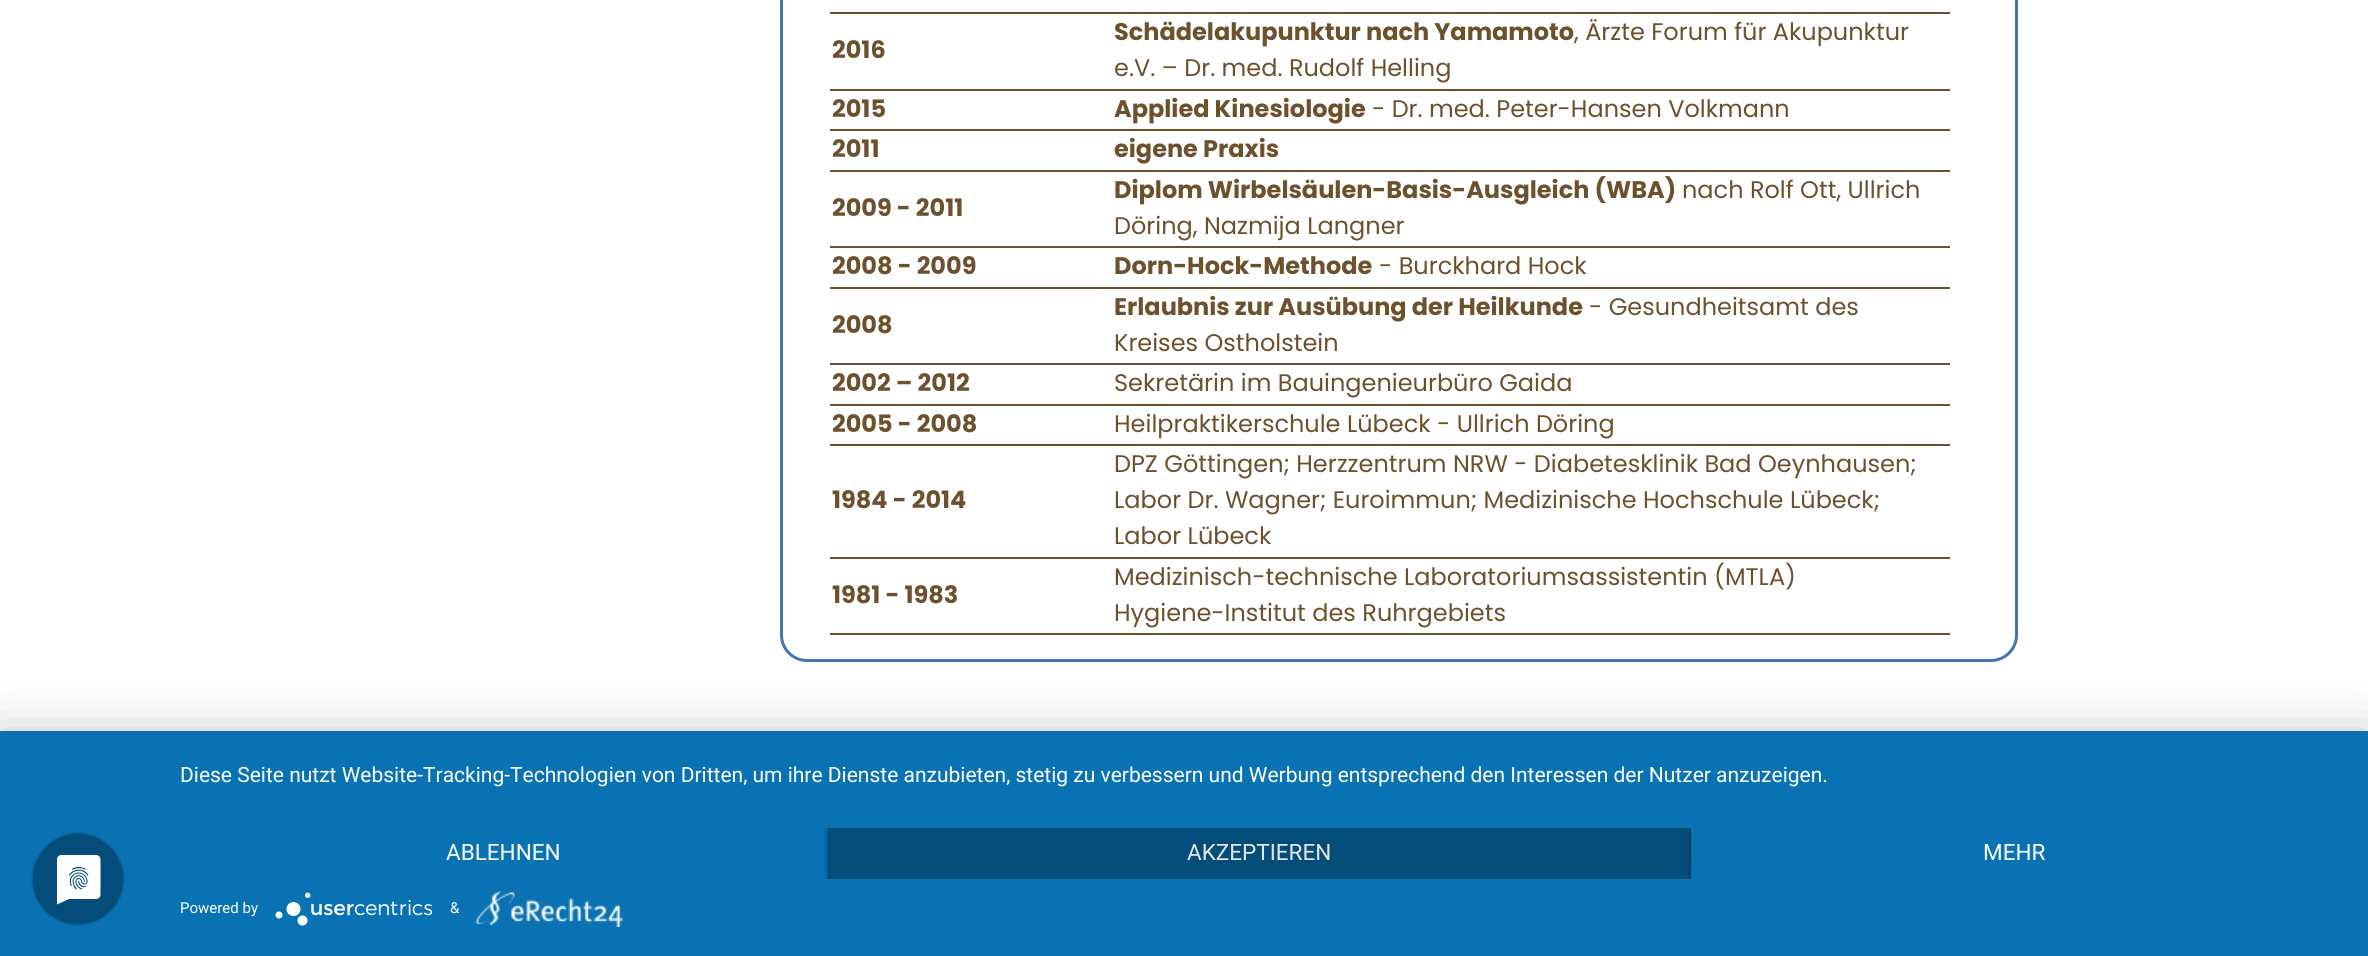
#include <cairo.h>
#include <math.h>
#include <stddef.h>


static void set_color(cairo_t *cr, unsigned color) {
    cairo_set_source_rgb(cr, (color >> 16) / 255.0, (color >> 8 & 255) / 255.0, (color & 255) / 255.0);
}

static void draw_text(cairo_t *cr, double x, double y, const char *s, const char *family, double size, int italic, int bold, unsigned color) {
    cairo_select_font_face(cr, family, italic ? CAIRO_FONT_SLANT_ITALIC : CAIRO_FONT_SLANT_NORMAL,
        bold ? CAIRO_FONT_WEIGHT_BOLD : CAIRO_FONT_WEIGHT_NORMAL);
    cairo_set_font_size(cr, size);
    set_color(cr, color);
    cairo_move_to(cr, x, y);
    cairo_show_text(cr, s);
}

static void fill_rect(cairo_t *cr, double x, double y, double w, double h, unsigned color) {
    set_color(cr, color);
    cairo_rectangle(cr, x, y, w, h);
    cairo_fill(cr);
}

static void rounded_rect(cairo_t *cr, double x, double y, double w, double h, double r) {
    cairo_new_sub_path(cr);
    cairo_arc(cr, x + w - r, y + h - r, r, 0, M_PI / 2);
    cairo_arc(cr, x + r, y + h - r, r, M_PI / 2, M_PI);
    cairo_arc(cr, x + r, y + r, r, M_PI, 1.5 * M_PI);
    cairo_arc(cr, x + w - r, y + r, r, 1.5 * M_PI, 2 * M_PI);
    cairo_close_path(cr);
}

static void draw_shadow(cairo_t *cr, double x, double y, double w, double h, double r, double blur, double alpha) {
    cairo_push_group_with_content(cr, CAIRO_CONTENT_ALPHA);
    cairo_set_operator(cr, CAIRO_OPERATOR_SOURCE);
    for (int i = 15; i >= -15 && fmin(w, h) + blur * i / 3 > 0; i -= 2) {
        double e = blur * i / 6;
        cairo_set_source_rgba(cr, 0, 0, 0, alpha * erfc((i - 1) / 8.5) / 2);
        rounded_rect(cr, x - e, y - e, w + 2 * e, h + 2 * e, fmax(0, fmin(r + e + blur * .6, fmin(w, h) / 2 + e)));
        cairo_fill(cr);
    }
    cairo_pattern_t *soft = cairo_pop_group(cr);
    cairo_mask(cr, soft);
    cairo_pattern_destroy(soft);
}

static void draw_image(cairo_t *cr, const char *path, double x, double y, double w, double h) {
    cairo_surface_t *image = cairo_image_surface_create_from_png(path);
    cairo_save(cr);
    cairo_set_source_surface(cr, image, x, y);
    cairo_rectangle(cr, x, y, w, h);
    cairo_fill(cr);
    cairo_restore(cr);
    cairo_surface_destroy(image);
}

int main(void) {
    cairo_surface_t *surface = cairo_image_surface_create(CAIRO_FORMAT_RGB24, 2368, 956);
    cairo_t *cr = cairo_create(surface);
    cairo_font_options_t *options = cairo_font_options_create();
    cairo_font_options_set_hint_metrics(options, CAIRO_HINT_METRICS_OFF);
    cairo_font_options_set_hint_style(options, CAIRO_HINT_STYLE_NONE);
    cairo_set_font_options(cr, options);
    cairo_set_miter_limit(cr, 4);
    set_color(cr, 0xFFFFFF);
    cairo_paint(cr);
    rounded_rect(cr, 781.5, -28.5, 1235, 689, 25.5);
    set_color(cr, 0x4474B4);
    cairo_set_line_width(cr, 3);
    cairo_stroke(cr);
    fill_rect(cr, 830, 12, 1120, 2, 0x6D502C);
    fill_rect(cr, 830, 89, 1120, 2, 0x6D502C);
    draw_text(cr, 832, 58, "2016", "Poppins", 24, 0, 1, 0x6D502C);
    draw_text(cr, 1114, 40, "Schädelakupunktur nach Yamamoto", "Poppins", 24, 0, 1, 0x6D502C);
    draw_text(cr, 1574, 40, ", Ärzte Forum für Akupunktur", "Poppins", 24, 0, 0, 0x6D502C);
    draw_text(cr, 1114, 76, "e.V. – Dr. med. Rudolf Helling", "Poppins", 24, 0, 0, 0x6D502C);
    fill_rect(cr, 830, 129, 1120, 2, 0x6D502C);
    draw_text(cr, 832, 117, "2015", "Poppins", 24, 0, 1, 0x6D502C);
    draw_text(cr, 1114, 117, "Applied Kinesiologie", "Poppins", 24, 0, 1, 0x6D502C);
    draw_text(cr, 1372, 117, "- Dr. med. Peter-Hansen Volkmann", "Poppins", 24, 0, 0, 0x6D502C);
    fill_rect(cr, 830, 170, 1120, 2, 0x6D502C);
    draw_text(cr, 832, 157, "2011", "Poppins", 24, 0, 1, 0x6D502C);
    draw_text(cr, 1114, 157, "eigene Praxis", "Poppins", 24, 0, 1, 0x6D502C);
    fill_rect(cr, 830, 246, 1120, 2, 0x6D502C);
    draw_text(cr, 832, 216, "2009 - 2011", "Poppins", 24, 0, 1, 0x6D502C);
    draw_text(cr, 1114, 198, "Diplom Wirbelsäulen-Basis-Ausgleich (WBA)", "Poppins", 24, 0, 1, 0x6D502C);
    draw_text(cr, 1682, 198, "nach Rolf Ott, Ullrich", "Poppins", 24, 0, 0, 0x6D502C);
    draw_text(cr, 1114, 234, "Döring, Nazmija Langner", "Poppins", 24, 0, 0, 0x6D502C);
    fill_rect(cr, 830, 287, 1120, 2, 0x6D502C);
    draw_text(cr, 832, 274, "2008 - 2009", "Poppins", 24, 0, 1, 0x6D502C);
    draw_text(cr, 1114, 274, "Dorn-Hock-Methode", "Poppins", 24, 0, 1, 0x6D502C);
    draw_text(cr, 1379, 274, "- Burckhard Hock", "Poppins", 24, 0, 0, 0x6D502C);
    fill_rect(cr, 830, 363, 1120, 2, 0x6D502C);
    draw_text(cr, 832, 333, "2008", "Poppins", 24, 0, 1, 0x6D502C);
    draw_text(cr, 1114, 315, "Erlaubnis zur Ausübung der Heilkunde", "Poppins", 24, 0, 1, 0x6D502C);
    draw_text(cr, 1589, 315, "- Gesundheitsamt des", "Poppins", 24, 0, 0, 0x6D502C);
    draw_text(cr, 1114, 351, "Kreises Ostholstein", "Poppins", 24, 0, 0, 0x6D502C);
    fill_rect(cr, 830, 404, 1120, 2, 0x6D502C);
    draw_text(cr, 832, 391, "2002 – 2012", "Poppins", 24, 0, 1, 0x6D502C);
    draw_text(cr, 1114, 391, "Sekretärin im Bauingenieurbüro Gaida", "Poppins", 24, 0, 0, 0x6D502C);
    fill_rect(cr, 830, 444, 1120, 2, 0x6D502C);
    draw_text(cr, 832, 432, "2005 - 2008", "Poppins", 24, 0, 1, 0x6D502C);
    draw_text(cr, 1114, 432, "Heilpraktikerschule Lübeck - Ullrich Döring", "Poppins", 24, 0, 0, 0x6D502C);
    fill_rect(cr, 830, 557, 1120, 2, 0x6D502C);
    draw_text(cr, 832, 508, "1984 - 2014", "Poppins", 24, 0, 1, 0x6D502C);
    draw_text(cr, 1114, 472, "DPZ Göttingen; Herzzentrum NRW - Diabetesklinik Bad Oeynhausen;", "Poppins", 24, 0, 0, 0x6D502C);
    draw_text(cr, 1114, 508, "Labor Dr. Wagner; Euroimmun; Medizinische Hochschule Lübeck;", "Poppins", 24, 0, 0, 0x6D502C);
    draw_text(cr, 1114, 544, "Labor Lübeck", "Poppins", 24, 0, 0, 0x6D502C);
    fill_rect(cr, 830, 633, 1120, 2, 0x6D502C);
    draw_text(cr, 832, 603, "1981 - 1983", "Poppins", 24, 0, 1, 0x6D502C);
    draw_text(cr, 1114, 585, "Medizinisch-technische Laboratoriumsassistentin (MTLA)", "Poppins", 24, 0, 0, 0x6D502C);
    draw_text(cr, 1114, 621, "Hygiene-Institut des Ruhrgebiets", "Poppins", 24, 0, 0, 0x6D502C);
    set_color(cr, 0x000000);
    draw_shadow(cr, 0, 740, 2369, 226, 0, 27, 0.3);
    fill_rect(cr, 0, 731, 2368, 225, 0x0972B3);
    draw_image(cr, "assets/img1.png", 31, 832, 94, 94);
    draw_text(cr, 180, 782, "Diese Seite nutzt Website-Tracking-Technologien von Dritten, um ihre Dienste anzubieten, stetig zu verbessern und Werbung entsprechend den Interessen der Nutzer anzuzeigen.", "Roboto", 21, 0, 0, 0xFFFFFF);
    draw_text(cr, 446, 860, "ABLEHNEN", "Roboto", 22.5, 0, 0, 0xFFFFFF);
    cairo_save(cr);
    cairo_rectangle(cr, 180, 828, 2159, 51);
    cairo_clip(cr);
    set_color(cr, 0x000000);
    draw_shadow(cr, 828, 830, 863, 51, 0, 3, 0.4);
    cairo_restore(cr);
    fill_rect(cr, 828, 828, 863, 51, 0x044D7A);
    draw_text(cr, 1187, 860, "AKZEPTIEREN", "Roboto", 22.5, 0, 0, 0xE6E6E6);
    cairo_save(cr);
    cairo_rectangle(cr, 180, 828, 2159, 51);
    cairo_clip(cr);
    set_color(cr, 0x000000);
    draw_shadow(cr, 1691, 830, 648, 51, 0, 3, 0.4);
    cairo_restore(cr);
    fill_rect(cr, 1691, 828, 648, 51, 0x0972B3);
    draw_text(cr, 1983, 860, "MEHR", "Roboto", 22.5, 0, 0, 0xFFFFFF);
    draw_text(cr, 180, 913, "Powered by", "Roboto", 15, 0, 0, 0xFFFFFF);
    draw_image(cr, "assets/img2.png", 275, 892, 158, 34);
    draw_text(cr, 450, 913, "&", "Roboto", 15, 0, 0, 0xFFFFFF);
    draw_image(cr, "assets/img3.png", 475, 891, 148, 36);
    cairo_surface_write_to_png(surface, "output.png");
    cairo_font_options_destroy(options);
    cairo_destroy(cr);
    cairo_surface_destroy(surface);
    return 0;
}
